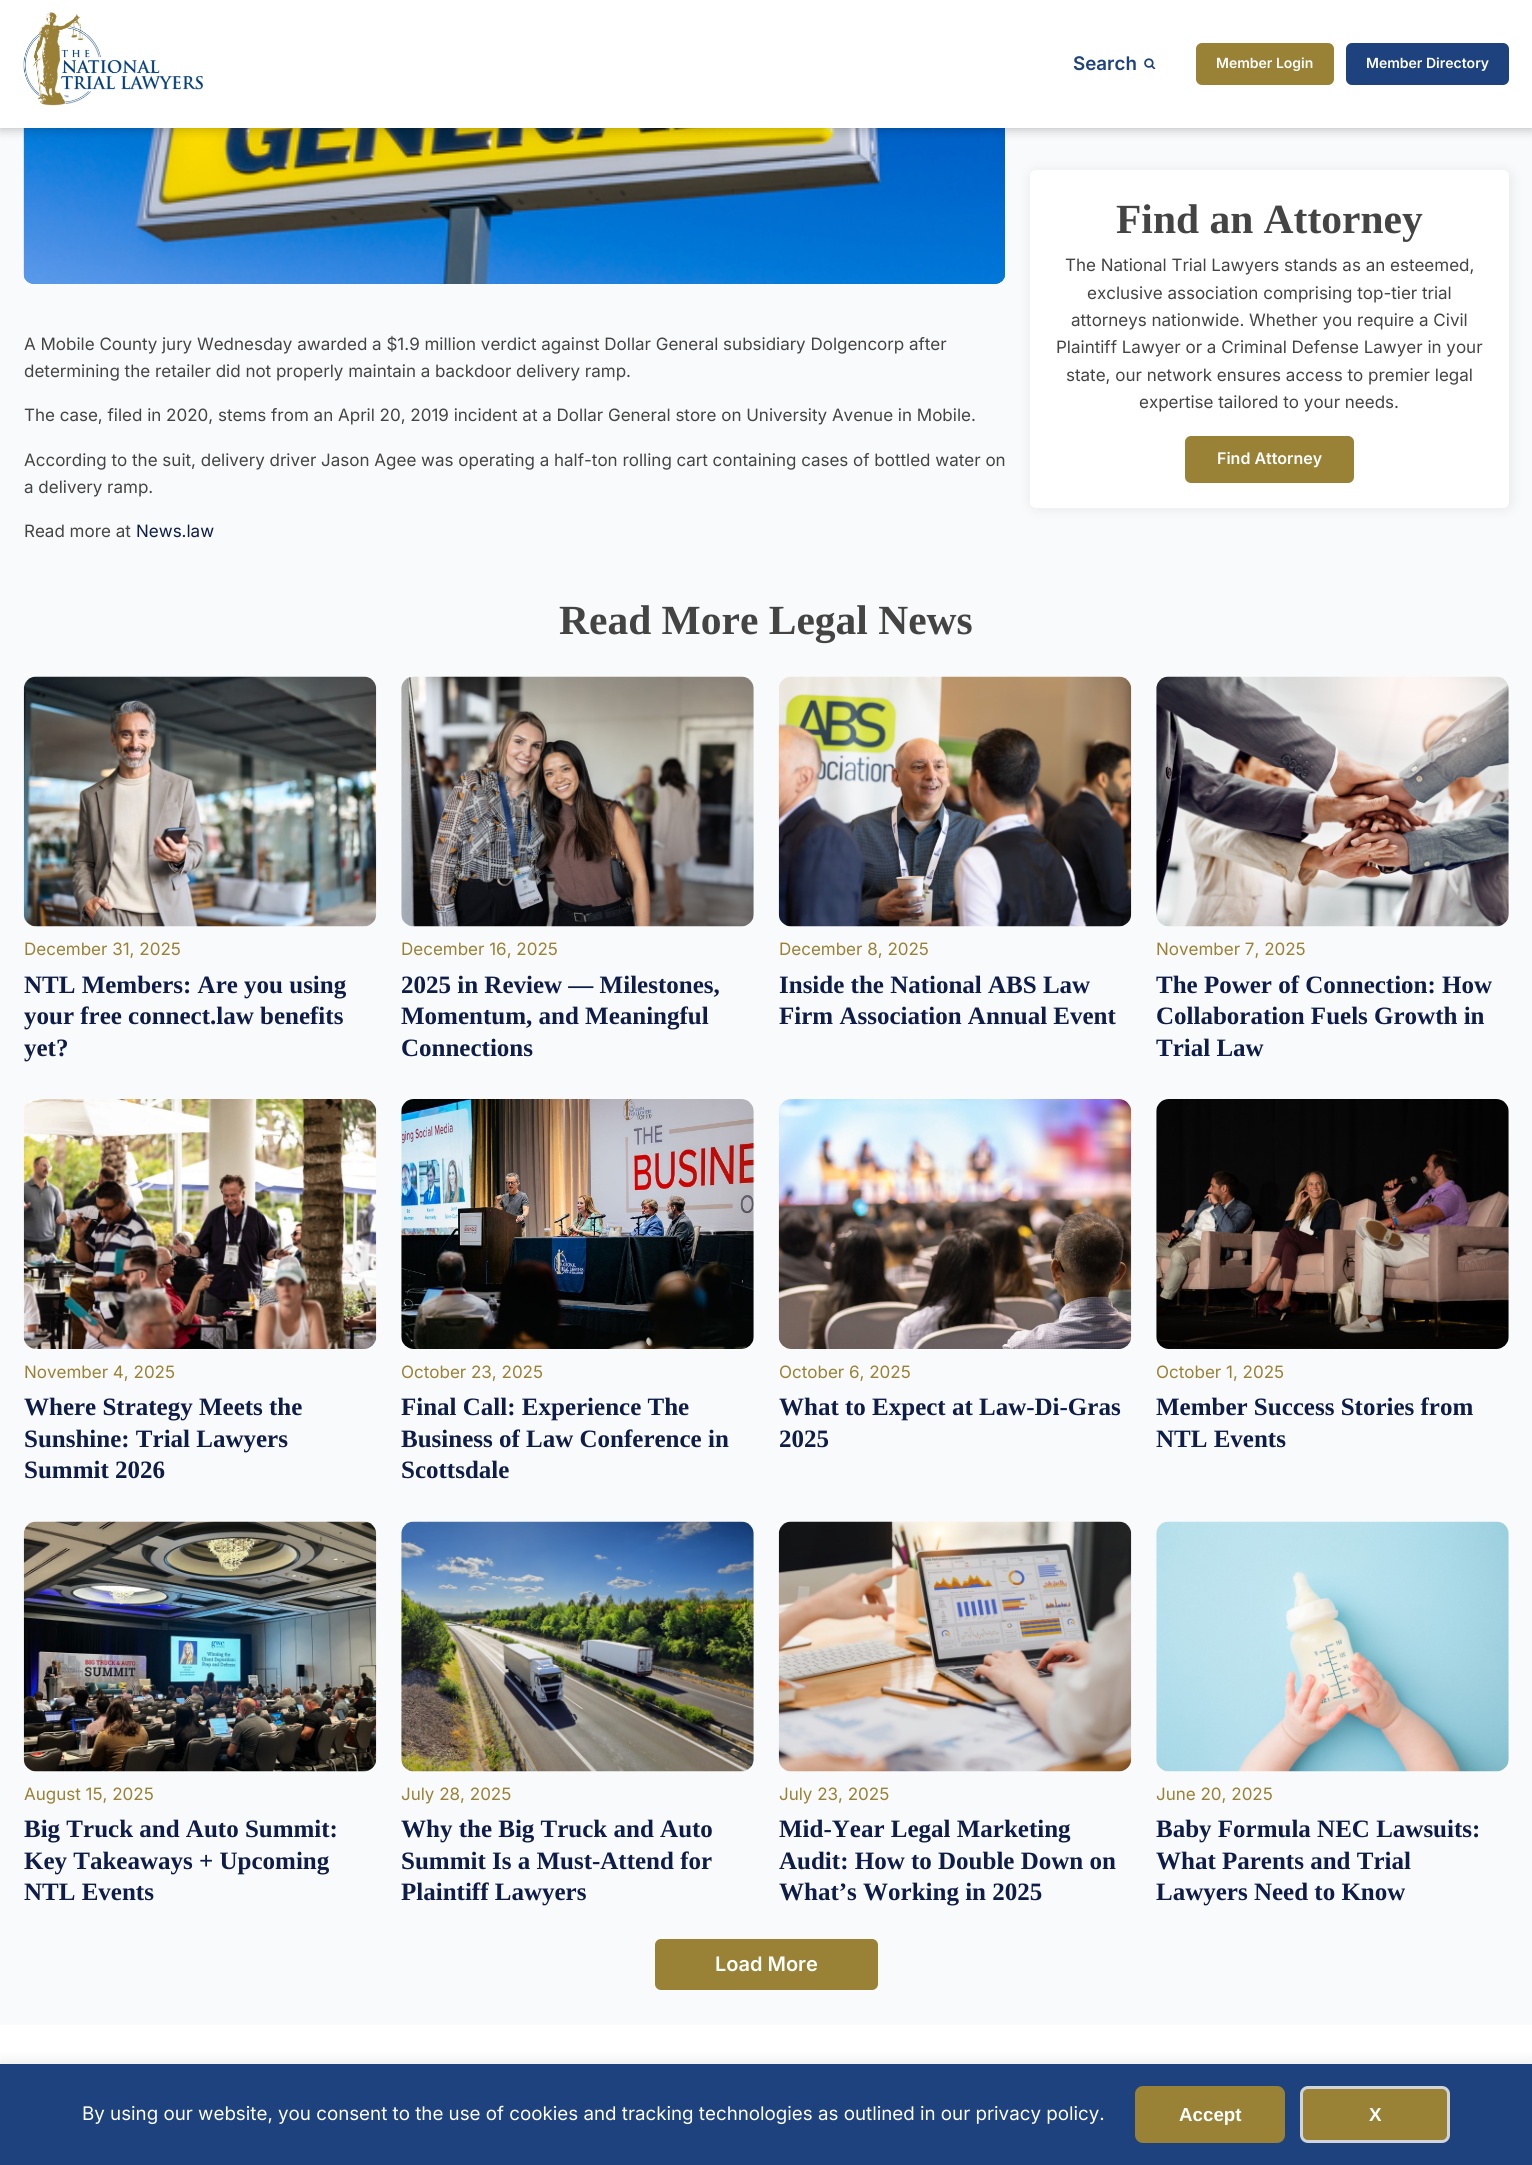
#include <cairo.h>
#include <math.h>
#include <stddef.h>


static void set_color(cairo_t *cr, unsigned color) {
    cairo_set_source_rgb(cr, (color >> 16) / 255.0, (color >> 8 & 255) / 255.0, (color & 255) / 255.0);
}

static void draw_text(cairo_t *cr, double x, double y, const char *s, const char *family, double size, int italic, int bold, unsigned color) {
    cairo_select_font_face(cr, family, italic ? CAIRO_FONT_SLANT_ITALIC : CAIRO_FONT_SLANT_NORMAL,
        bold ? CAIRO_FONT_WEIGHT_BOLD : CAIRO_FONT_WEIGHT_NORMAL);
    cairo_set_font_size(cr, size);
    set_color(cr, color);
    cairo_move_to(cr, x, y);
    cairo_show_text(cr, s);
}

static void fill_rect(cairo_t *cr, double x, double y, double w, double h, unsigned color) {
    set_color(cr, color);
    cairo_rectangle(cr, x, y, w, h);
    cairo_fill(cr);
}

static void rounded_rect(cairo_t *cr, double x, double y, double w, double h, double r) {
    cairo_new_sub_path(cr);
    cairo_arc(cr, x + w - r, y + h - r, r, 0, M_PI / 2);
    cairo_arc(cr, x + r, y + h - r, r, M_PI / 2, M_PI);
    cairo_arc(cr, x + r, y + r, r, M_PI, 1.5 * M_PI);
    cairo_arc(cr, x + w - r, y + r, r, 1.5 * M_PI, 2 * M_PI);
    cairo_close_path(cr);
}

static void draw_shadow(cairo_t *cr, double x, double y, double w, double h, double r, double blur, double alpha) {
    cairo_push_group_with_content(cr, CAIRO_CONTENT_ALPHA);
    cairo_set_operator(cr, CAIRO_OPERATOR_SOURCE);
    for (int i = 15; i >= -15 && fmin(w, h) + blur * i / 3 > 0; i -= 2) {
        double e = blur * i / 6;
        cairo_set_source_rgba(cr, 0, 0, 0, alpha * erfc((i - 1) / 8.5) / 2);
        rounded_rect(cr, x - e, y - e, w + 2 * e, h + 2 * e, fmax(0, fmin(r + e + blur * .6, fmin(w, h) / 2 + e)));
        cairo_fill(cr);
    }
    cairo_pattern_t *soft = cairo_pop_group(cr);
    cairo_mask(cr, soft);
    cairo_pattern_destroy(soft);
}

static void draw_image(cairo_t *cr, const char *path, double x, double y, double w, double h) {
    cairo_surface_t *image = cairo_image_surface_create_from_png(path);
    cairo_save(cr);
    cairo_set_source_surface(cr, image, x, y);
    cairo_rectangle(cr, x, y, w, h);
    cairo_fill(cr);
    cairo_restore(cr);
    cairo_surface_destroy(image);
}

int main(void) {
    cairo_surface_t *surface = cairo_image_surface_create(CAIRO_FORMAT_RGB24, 1532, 2165);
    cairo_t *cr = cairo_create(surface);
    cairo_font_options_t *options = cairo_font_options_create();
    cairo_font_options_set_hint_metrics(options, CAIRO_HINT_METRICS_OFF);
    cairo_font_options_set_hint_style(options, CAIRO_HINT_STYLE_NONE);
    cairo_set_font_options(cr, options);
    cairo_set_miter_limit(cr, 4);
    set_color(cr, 0xFFFFFF);
    cairo_paint(cr);
    fill_rect(cr, 0, 128, 1532, 1897, 0xF9FAFB);
    draw_image(cr, "assets/img3.png", 23, 128, 982, 156);
    draw_image(cr, "assets/img4.png", 23, 128, 982, 156);
    set_color(cr, 0x000000);
    draw_shadow(cr, 0, 0, 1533, 128, 0, 6, 0.3);
    fill_rect(cr, 0, 0, 1532, 128, 0xFFFFFF);
    draw_image(cr, "assets/img1.png", 23, 12, 181, 94);
    draw_text(cr, 1073, 70, "Search", "Inter SemiBold", 18.75, 0, 0, 0x1E427D);
    draw_image(cr, "assets/img2.png", 1144, 58, 12, 11);
    set_color(cr, 0x998135);
    rounded_rect(cr, 1196, 43, 138, 42, 6);
    cairo_fill(cr);
    draw_text(cr, 1216, 68, "Member Login", "Inter SemiBold", 14, 0, 0, 0xFFFFFF);
    set_color(cr, 0x1E427D);
    rounded_rect(cr, 1346, 43, 163, 42, 6);
    cairo_fill(cr);
    draw_text(cr, 1366, 68, "Member Directory", "Inter SemiBold", 14, 0, 0, 0xFFFFFF);
    draw_text(cr, 24, 350, "A Mobile County jury Wednesday awarded a $1.9 million verdict against Dollar General subsidiary Dolgencorp after", "Inter", 17, 0, 0, 0x444444);
    draw_text(cr, 24, 377, "determining the retailer did not properly maintain a backdoor delivery ramp.", "Inter", 17, 0, 0, 0x444444);
    draw_text(cr, 24, 421, "The case, filed in 2020, stems from an April 20, 2019 incident at a Dollar General store on University Avenue in Mobile.", "Inter", 17, 0, 0, 0x444444);
    draw_text(cr, 24, 466, "According to the suit, delivery driver Jason Agee was operating a half-ton rolling cart containing cases of bottled water on", "Inter", 17, 0, 0, 0x444444);
    draw_text(cr, 24, 493, "a delivery ramp.", "Inter", 17, 0, 0, 0x444444);
    draw_text(cr, 24, 537, "Read more at", "Inter", 17, 0, 0, 0x444444);
    draw_text(cr, 136, 537, "News.law", "Inter", 17, 0, 0, 0x0D1C49);
    set_color(cr, 0x000000);
    draw_shadow(cr, 1029, 169, 484, 342, 9, 6, 0.06);
    set_color(cr, 0xFFFFFF);
    rounded_rect(cr, 1030, 170, 479, 338, 6);
    cairo_fill(cr);
    draw_text(cr, 1116, 233, "Find an Attorney", "Liberation Serif", 41.5, 0, 1, 0x444444);
    draw_text(cr, 1065, 271, "The National Trial Lawyers stands as an esteemed,", "Inter", 17, 0, 0, 0x444444);
    draw_text(cr, 1087, 299, "exclusive association comprising top-tier trial", "Inter", 17, 0, 0, 0x444444);
    draw_text(cr, 1071, 326, "attorneys nationwide. Whether you require a Civil", "Inter", 17, 0, 0, 0x444444);
    draw_text(cr, 1056, 353, "Plaintiff Lawyer or a Criminal Defense Lawyer in your", "Inter", 17, 0, 0, 0x444444);
    draw_text(cr, 1066, 381, "state, our network ensures access to premier legal", "Inter", 17, 0, 0, 0x444444);
    draw_text(cr, 1139, 408, "expertise tailored to your needs.", "Inter", 17, 0, 0, 0x444444);
    set_color(cr, 0x998135);
    rounded_rect(cr, 1185, 436, 169, 47, 6);
    cairo_fill(cr);
    draw_text(cr, 1217, 464, "Find Attorney", "Inter SemiBold", 16, 0, 0, 0xFFFFFF);
    draw_text(cr, 559, 634, "Read More Legal News", "Liberation Serif", 41.5, 0, 1, 0x444444);
    draw_image(cr, "assets/img5.png", 23, 676, 354, 251);
    draw_text(cr, 24, 955, "December 31, 2025", "Inter", 17, 0, 0, 0x998135);
    draw_text(cr, 24, 993, "NTL Members: Are you using", "Liberation Serif", 25, 0, 1, 0x0D1C49);
    draw_text(cr, 24, 1024, "your free connect.law benefits", "Liberation Serif", 25, 0, 1, 0x0D1C49);
    draw_text(cr, 24, 1056, "yet?", "Liberation Serif", 25, 0, 1, 0x0D1C49);
    draw_image(cr, "assets/img6.png", 401, 676, 353, 251);
    draw_text(cr, 401, 955, "December 16, 2025", "Inter", 17, 0, 0, 0x998135);
    draw_text(cr, 401, 993, "2025 in Review — Milestones,", "Liberation Serif", 25, 0, 1, 0x0D1C49);
    draw_text(cr, 401, 1024, "Momentum, and Meaningful", "Liberation Serif", 25, 0, 1, 0x0D1C49);
    draw_text(cr, 401, 1056, "Connections", "Liberation Serif", 25, 0, 1, 0x0D1C49);
    draw_image(cr, "assets/img7.png", 778, 676, 354, 251);
    draw_text(cr, 779, 955, "December 8, 2025", "Inter", 17, 0, 0, 0x998135);
    draw_text(cr, 779, 993, "Inside the National ABS Law", "Liberation Serif", 25, 0, 1, 0x0D1C49);
    draw_text(cr, 779, 1024, "Firm Association Annual Event", "Liberation Serif", 25, 0, 1, 0x0D1C49);
    draw_image(cr, "assets/img8.png", 1156, 676, 353, 251);
    draw_text(cr, 1156, 955, "November 7, 2025", "Inter", 17, 0, 0, 0x998135);
    draw_text(cr, 1156, 993, "The Power of Connection: How", "Liberation Serif", 25, 0, 1, 0x0D1C49);
    draw_text(cr, 1156, 1024, "Collaboration Fuels Growth in", "Liberation Serif", 25, 0, 1, 0x0D1C49);
    draw_text(cr, 1156, 1056, "Trial Law", "Liberation Serif", 25, 0, 1, 0x0D1C49);
    draw_image(cr, "assets/img9.png", 23, 1099, 354, 250);
    draw_text(cr, 24, 1378, "November 4, 2025", "Inter", 17, 0, 0, 0x998135);
    draw_text(cr, 24, 1415, "Where Strategy Meets the", "Liberation Serif", 25, 0, 1, 0x0D1C49);
    draw_text(cr, 24, 1447, "Sunshine: Trial Lawyers", "Liberation Serif", 25, 0, 1, 0x0D1C49);
    draw_text(cr, 24, 1478, "Summit 2026", "Liberation Serif", 25, 0, 1, 0x0D1C49);
    draw_image(cr, "assets/img10.png", 401, 1099, 353, 250);
    draw_text(cr, 401, 1378, "October 23, 2025", "Inter", 17, 0, 0, 0x998135);
    draw_text(cr, 401, 1415, "Final Call: Experience The", "Liberation Serif", 25, 0, 1, 0x0D1C49);
    draw_text(cr, 401, 1447, "Business of Law Conference in", "Liberation Serif", 25, 0, 1, 0x0D1C49);
    draw_text(cr, 401, 1478, "Scottsdale", "Liberation Serif", 25, 0, 1, 0x0D1C49);
    draw_image(cr, "assets/img11.png", 778, 1099, 354, 250);
    draw_text(cr, 779, 1378, "October 6, 2025", "Inter", 17, 0, 0, 0x998135);
    draw_text(cr, 779, 1415, "What to Expect at Law-Di-Gras", "Liberation Serif", 25, 0, 1, 0x0D1C49);
    draw_text(cr, 779, 1447, "2025", "Liberation Serif", 25, 0, 1, 0x0D1C49);
    draw_image(cr, "assets/img12.png", 1156, 1099, 353, 250);
    draw_text(cr, 1156, 1378, "October 1, 2025", "Inter", 17, 0, 0, 0x998135);
    draw_text(cr, 1156, 1415, "Member Success Stories from", "Liberation Serif", 25, 0, 1, 0x0D1C49);
    draw_text(cr, 1156, 1447, "NTL Events", "Liberation Serif", 25, 0, 1, 0x0D1C49);
    draw_image(cr, "assets/img13.png", 23, 1521, 354, 251);
    draw_text(cr, 24, 1800, "August 15, 2025", "Inter", 17, 0, 0, 0x998135);
    draw_text(cr, 24, 1837, "Big Truck and Auto Summit:", "Liberation Serif", 25, 0, 1, 0x0D1C49);
    draw_text(cr, 24, 1869, "Key Takeaways + Upcoming", "Liberation Serif", 25, 0, 1, 0x0D1C49);
    draw_text(cr, 24, 1900, "NTL Events", "Liberation Serif", 25, 0, 1, 0x0D1C49);
    draw_image(cr, "assets/img14.png", 401, 1521, 353, 251);
    draw_text(cr, 401, 1800, "July 28, 2025", "Inter", 17, 0, 0, 0x998135);
    draw_text(cr, 401, 1837, "Why the Big Truck and Auto", "Liberation Serif", 25, 0, 1, 0x0D1C49);
    draw_text(cr, 401, 1869, "Summit Is a Must-Attend for", "Liberation Serif", 25, 0, 1, 0x0D1C49);
    draw_text(cr, 401, 1900, "Plaintiff Lawyers", "Liberation Serif", 25, 0, 1, 0x0D1C49);
    draw_image(cr, "assets/img15.png", 778, 1521, 354, 251);
    draw_text(cr, 779, 1800, "July 23, 2025", "Inter", 17, 0, 0, 0x998135);
    draw_text(cr, 779, 1837, "Mid-Year Legal Marketing", "Liberation Serif", 25, 0, 1, 0x0D1C49);
    draw_text(cr, 779, 1869, "Audit: How to Double Down on", "Liberation Serif", 25, 0, 1, 0x0D1C49);
    draw_text(cr, 779, 1900, "What’s Working in 2025", "Liberation Serif", 25, 0, 1, 0x0D1C49);
    draw_image(cr, "assets/img16.png", 1156, 1521, 353, 251);
    draw_text(cr, 1156, 1800, "June 20, 2025", "Inter", 17, 0, 0, 0x998135);
    draw_text(cr, 1156, 1837, "Baby Formula NEC Lawsuits:", "Liberation Serif", 25, 0, 1, 0x0D1C49);
    draw_text(cr, 1156, 1869, "What Parents and Trial", "Liberation Serif", 25, 0, 1, 0x0D1C49);
    draw_text(cr, 1156, 1900, "Lawyers Need to Know", "Liberation Serif", 25, 0, 1, 0x0D1C49);
    set_color(cr, 0x998135);
    rounded_rect(cr, 655, 1939, 223, 51, 6);
    cairo_fill(cr);
    draw_text(cr, 715, 1971, "Load More", "Inter SemiBold", 20, 0, 0, 0xFFFFFF);
    set_color(cr, 0x000000);
    draw_shadow(cr, 0, 2061, 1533, 102, 0, 6, 0.08);
    fill_rect(cr, 0, 2064, 1532, 101, 0x1E427D);
    draw_text(cr, 82, 2120, "By using our website, you consent to the use of cookies and tracking technologies as outlined in our privacy policy.", "Inter", 18.75, 0, 0, 0xFFFFFF);
    set_color(cr, 0x998135);
    rounded_rect(cr, 1135, 2086, 150, 57, 8);
    cairo_fill(cr);
    draw_text(cr, 1179, 2121, "Accept", "Liberation Sans", 18.75, 0, 1, 0xFFFFFF);
    set_color(cr, 0x998135);
    rounded_rect(cr, 1301.5, 2087.5, 147, 54, 6.5);
    cairo_fill_preserve(cr);
    set_color(cr, 0xD1D5DB);
    cairo_set_line_width(cr, 3);
    cairo_stroke(cr);
    draw_text(cr, 1369, 2121, "X", "Liberation Sans", 18.75, 0, 1, 0xFFFFFF);
    cairo_surface_write_to_png(surface, "output.png");
    cairo_font_options_destroy(options);
    cairo_destroy(cr);
    cairo_surface_destroy(surface);
    return 0;
}
